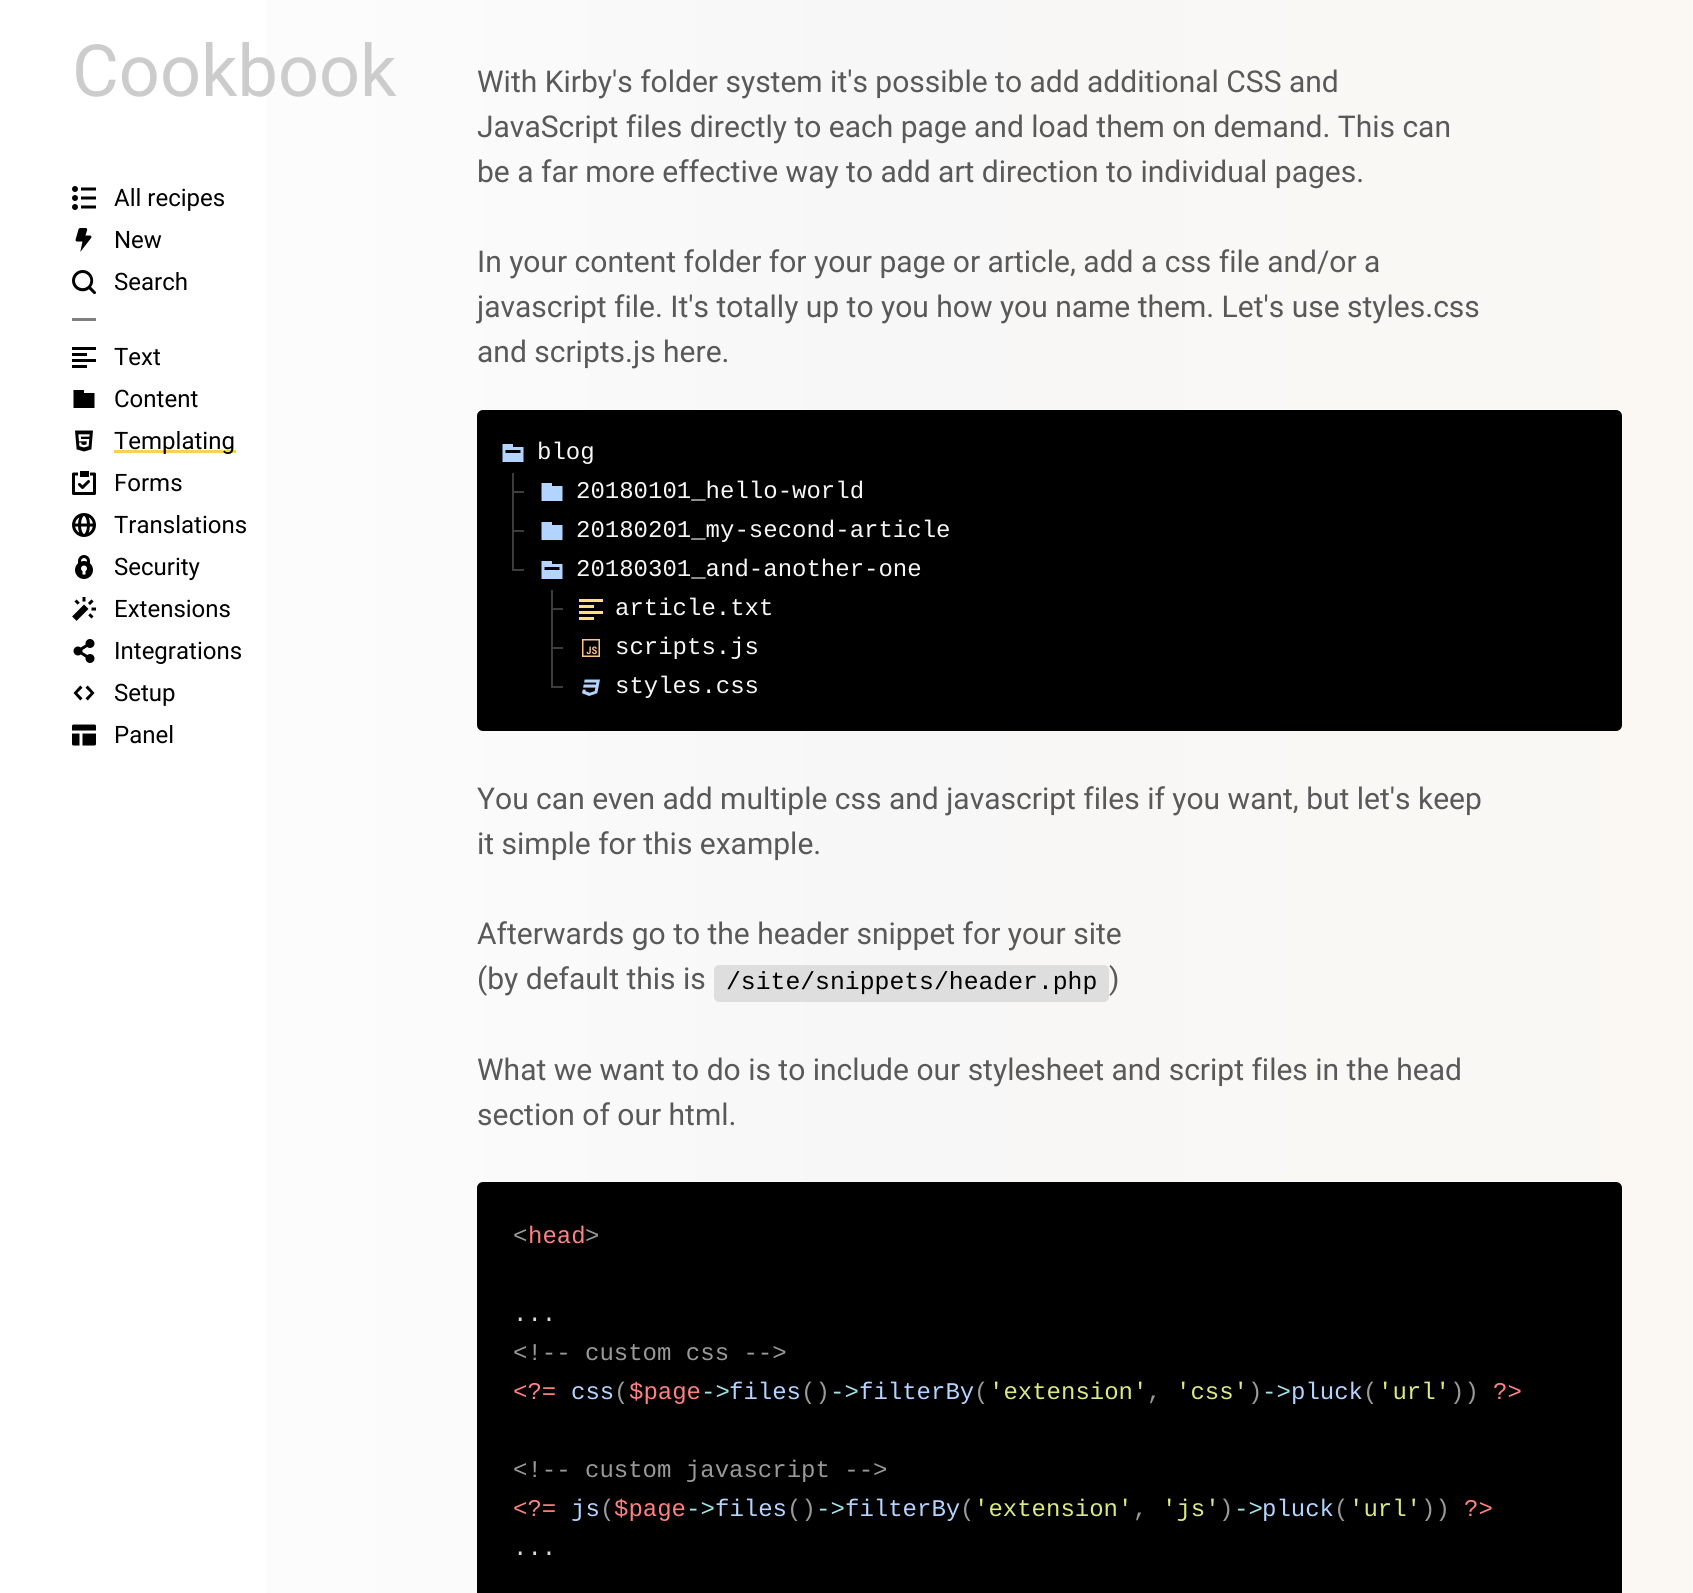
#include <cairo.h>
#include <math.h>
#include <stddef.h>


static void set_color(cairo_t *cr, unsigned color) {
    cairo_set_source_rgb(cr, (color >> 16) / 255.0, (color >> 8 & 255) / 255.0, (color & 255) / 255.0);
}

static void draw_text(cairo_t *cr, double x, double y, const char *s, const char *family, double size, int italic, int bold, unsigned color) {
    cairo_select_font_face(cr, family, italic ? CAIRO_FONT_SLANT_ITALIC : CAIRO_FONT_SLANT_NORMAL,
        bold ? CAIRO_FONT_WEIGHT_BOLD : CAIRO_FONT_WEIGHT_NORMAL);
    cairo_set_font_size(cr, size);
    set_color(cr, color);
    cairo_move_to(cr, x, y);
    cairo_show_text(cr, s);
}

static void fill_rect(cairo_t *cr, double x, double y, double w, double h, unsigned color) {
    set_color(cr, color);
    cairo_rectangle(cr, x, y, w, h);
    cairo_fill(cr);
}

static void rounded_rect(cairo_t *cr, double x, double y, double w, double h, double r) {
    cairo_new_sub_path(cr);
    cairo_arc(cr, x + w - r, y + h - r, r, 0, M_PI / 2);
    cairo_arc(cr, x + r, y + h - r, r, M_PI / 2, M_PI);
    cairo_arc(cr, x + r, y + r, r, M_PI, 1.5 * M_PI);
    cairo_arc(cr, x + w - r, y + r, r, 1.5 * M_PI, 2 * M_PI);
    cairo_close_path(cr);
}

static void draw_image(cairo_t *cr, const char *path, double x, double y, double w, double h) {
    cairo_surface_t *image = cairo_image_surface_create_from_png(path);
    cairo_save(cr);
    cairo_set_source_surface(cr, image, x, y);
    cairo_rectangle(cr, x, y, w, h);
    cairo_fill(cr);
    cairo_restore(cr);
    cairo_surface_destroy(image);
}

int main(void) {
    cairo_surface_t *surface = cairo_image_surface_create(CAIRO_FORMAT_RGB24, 1693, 1593);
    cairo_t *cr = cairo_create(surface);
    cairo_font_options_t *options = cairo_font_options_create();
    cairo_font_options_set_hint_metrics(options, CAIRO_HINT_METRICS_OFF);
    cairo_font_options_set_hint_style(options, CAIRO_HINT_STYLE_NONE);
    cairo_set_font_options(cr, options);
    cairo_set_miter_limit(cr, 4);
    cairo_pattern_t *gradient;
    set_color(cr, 0xFFFFFF);
    cairo_paint(cr);
    gradient = cairo_pattern_create_linear(0, 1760, 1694, 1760);
    cairo_pattern_add_color_stop_rgba(gradient, 0, 1, 1, 1, 1);
    cairo_pattern_add_color_stop_rgba(gradient, 0.5, 0.969, 0.969, 0.969, 1);
    cairo_pattern_add_color_stop_rgba(gradient, 1, 0.984, 0.973, 0.957, 1);
    cairo_set_source(cr, gradient);
    cairo_pattern_destroy(gradient);
    cairo_rectangle(cr, 265, 0, 1428, 1593);
    cairo_fill(cr);
    draw_text(cr, 72, 96, "Cookbook", "Roboto", 72, 0, 0, 0xCCCCCC);
    draw_image(cr, "assets/img1.png", 72, 186, 24, 24);
    draw_text(cr, 114, 206, "All recipes", "Roboto", 24, 0, 0, 0x000000);
    draw_image(cr, "assets/img2.png", 75, 228, 17, 24);
    draw_text(cr, 114, 248, "New", "Roboto", 24, 0, 0, 0x000000);
    draw_image(cr, "assets/img3.png", 72, 270, 24, 24);
    draw_text(cr, 114, 290, "Search", "Roboto", 24, 0, 0, 0x000000);
    fill_rect(cr, 72, 318, 24, 3, 0x808080);
    fill_rect(cr, 72, 347, 24, 3, 0x000000);
    fill_rect(cr, 72, 353, 15, 3, 0x000000);
    fill_rect(cr, 72, 359, 24, 3, 0x000000);
    fill_rect(cr, 72, 365, 15, 3, 0x000000);
    draw_text(cr, 114, 365, "Text", "Roboto", 24, 0, 0, 0x000000);
    cairo_new_path(cr);
    cairo_move_to(cr, 73.5, 390);
    cairo_line_to(cr, 84, 390);
    cairo_line_to(cr, 84, 393);
    cairo_line_to(cr, 94.5, 393);
    cairo_line_to(cr, 94.5, 408);
    cairo_line_to(cr, 73.5, 408);
    cairo_close_path(cr);
    cairo_fill(cr);
    draw_text(cr, 114, 407, "Content", "Roboto", 24, 0, 0, 0x000000);
    draw_image(cr, "assets/img4.png", 75, 430, 18, 22);
    fill_rect(cr, 114, 450, 122, 3, 0xF6D355);
    draw_text(cr, 114, 449, "Templating", "Roboto", 24, 0, 0, 0x000000);
    draw_image(cr, "assets/img5.png", 72, 471, 24, 24);
    draw_text(cr, 114, 491, "Forms", "Roboto", 24, 0, 0, 0x000000);
    draw_image(cr, "assets/img6.png", 72, 513, 24, 24);
    draw_text(cr, 114, 533, "Translations", "Roboto", 24, 0, 0, 0x000000);
    draw_image(cr, "assets/img7.png", 75, 555, 18, 24);
    draw_text(cr, 114, 575, "Security", "Roboto", 24, 0, 0, 0x000000);
    draw_image(cr, "assets/img8.png", 72, 597, 24, 24);
    draw_text(cr, 114, 617, "Extensions", "Roboto", 24, 0, 0, 0x000000);
    draw_image(cr, "assets/img9.png", 73, 639, 22, 24);
    draw_text(cr, 114, 659, "Integrations", "Roboto", 24, 0, 0, 0x000000);
    draw_image(cr, "assets/img10.png", 73, 685, 22, 16);
    draw_text(cr, 114, 701, "Setup", "Roboto", 24, 0, 0, 0x000000);
    draw_image(cr, "assets/img11.png", 72, 724, 24, 22);
    draw_text(cr, 114, 743, "Panel", "Roboto", 24, 0, 0, 0x000000);
    draw_text(cr, 477, 92, "With Kirby's folder system it's possible to add additional CSS and", "Roboto", 30, 0, 0, 0x595959);
    draw_text(cr, 477, 137, "JavaScript files directly to each page and load them on demand. This can", "Roboto", 30, 0, 0, 0x595959);
    draw_text(cr, 477, 182, "be a far more effective way to add art direction to individual pages.", "Roboto", 30, 0, 0, 0x595959);
    draw_text(cr, 477, 272, "In your content folder for your page or article, add a css file and/or a", "Roboto", 30, 0, 0, 0x595959);
    draw_text(cr, 477, 317, "javascript file. It's totally up to you how you name them. Let's use styles.css", "Roboto", 30, 0, 0, 0x595959);
    draw_text(cr, 477, 362, "and scripts.js here.", "Roboto", 30, 0, 0, 0x595959);
    set_color(cr, 0x000000);
    rounded_rect(cr, 477, 410, 1145, 321, 6);
    cairo_fill(cr);
    draw_image(cr, "assets/img12.png", 502, 444, 22, 18);
    draw_text(cr, 537, 459, "blog", "Liberation Mono", 24, 0, 0, 0xF7F7F7);
    fill_rect(cr, 512, 491, 12, 2, 0x3C3C3C);
    fill_rect(cr, 512, 473, 2, 39, 0x3C3C3C);
    set_color(cr, 0xB3D4FF);
    cairo_new_path(cr);
    cairo_move_to(cr, 541.5, 483);
    cairo_line_to(cr, 552, 483);
    cairo_line_to(cr, 552, 486);
    cairo_line_to(cr, 562.5, 486);
    cairo_line_to(cr, 562.5, 501);
    cairo_line_to(cr, 541.5, 501);
    cairo_close_path(cr);
    cairo_move_to(cr, 541.5, 522);
    cairo_line_to(cr, 552, 522);
    cairo_line_to(cr, 552, 525);
    cairo_line_to(cr, 562.5, 525);
    cairo_line_to(cr, 562.5, 540);
    cairo_line_to(cr, 541.5, 540);
    cairo_close_path(cr);
    cairo_fill(cr);
    draw_text(cr, 576, 498, "20180101_hello-world", "Liberation Mono", 24, 0, 0, 0xF7F7F7);
    fill_rect(cr, 512, 530, 12, 2, 0x3C3C3C);
    fill_rect(cr, 512, 512, 2, 57, 0x3C3C3C);
    draw_text(cr, 576, 537, "20180201_my-second-article", "Liberation Mono", 24, 0, 0, 0xF7F7F7);
    fill_rect(cr, 512, 569, 12, 2, 0x3C3C3C);
    draw_image(cr, "assets/img12.png", 541, 561, 22, 18);
    draw_text(cr, 576, 576, "20180301_and-another-one", "Liberation Mono", 24, 0, 0, 0xF7F7F7);
    fill_rect(cr, 551, 608, 12, 2, 0x3C3C3C);
    fill_rect(cr, 551, 590, 2, 39, 0x3C3C3C);
    fill_rect(cr, 579, 599, 24, 3, 0xF9E086);
    fill_rect(cr, 579, 605, 15, 3, 0xF9E086);
    fill_rect(cr, 579, 611, 24, 3, 0xF9E086);
    fill_rect(cr, 579, 617, 15, 3, 0xF9E086);
    draw_text(cr, 615, 615, "article.txt", "Liberation Mono", 24, 0, 0, 0xF7F7F7);
    fill_rect(cr, 551, 647, 12, 2, 0x3C3C3C);
    fill_rect(cr, 551, 629, 2, 57, 0x3C3C3C);
    draw_image(cr, "assets/img13.png", 582, 639, 18, 18);
    draw_text(cr, 615, 654, "scripts.js", "Liberation Mono", 24, 0, 0, 0xF7F7F7);
    fill_rect(cr, 551, 686, 12, 2, 0x3C3C3C);
    draw_image(cr, "assets/img14.png", 582, 679, 18, 17);
    draw_text(cr, 615, 693, "styles.css", "Liberation Mono", 24, 0, 0, 0xF7F7F7);
    draw_text(cr, 477, 809, "You can even add multiple css and javascript files if you want, but let's keep", "Roboto", 30, 0, 0, 0x595959);
    draw_text(cr, 477, 854, "it simple for this example.", "Roboto", 30, 0, 0, 0x595959);
    draw_text(cr, 477, 944, "Afterwards go to the header snippet for your site", "Roboto", 30, 0, 0, 0x595959);
    draw_text(cr, 477, 989, "(by default this is", "Roboto", 30, 0, 0, 0x595959);
    set_color(cr, 0xDFDEDE);
    rounded_rect(cr, 714, 965, 395, 37, 5);
    cairo_fill(cr);
    draw_text(cr, 726, 989, "/site/snippets/header.php", "Liberation Mono", 24.75, 0, 0, 0x000000);
    draw_text(cr, 1109, 989, ")", "Roboto", 30, 0, 0, 0x595959);
    draw_text(cr, 477, 1080, "What we want to do is to include our stylesheet and script files in the head", "Roboto", 30, 0, 0, 0x595959);
    draw_text(cr, 477, 1125, "section of our html.", "Roboto", 30, 0, 0, 0x595959);
    set_color(cr, 0x000000);
    rounded_rect(cr, 477, 1182, 1145, 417, 6);
    cairo_fill(cr);
    draw_text(cr, 513, 1243, "<", "Liberation Mono", 24, 0, 0, 0x999999);
    draw_text(cr, 528, 1243, "head", "Liberation Mono", 24, 0, 0, 0xFF8080);
    draw_text(cr, 585, 1243, ">", "Liberation Mono", 24, 0, 0, 0x999999);
    draw_text(cr, 513, 1321, "...", "Liberation Mono", 24, 0, 0, 0xDDDDDD);
    draw_text(cr, 513, 1360, "<!-- custom css -->", "Liberation Mono", 24, 0, 0, 0x999999);
    draw_text(cr, 513, 1399, "<?=", "Liberation Mono", 24, 0, 0, 0xFF8080);
    draw_text(cr, 571, 1399, "css", "Liberation Mono", 24, 0, 0, 0xB3D4FF);
    draw_text(cr, 614, 1399, "(", "Liberation Mono", 24, 0, 0, 0x999999);
    draw_text(cr, 629, 1399, "$page", "Liberation Mono", 24, 0, 0, 0xFF8080);
    draw_text(cr, 701, 1399, "->", "Liberation Mono", 24, 0, 0, 0xA1E4E8);
    draw_text(cr, 729, 1399, "files", "Liberation Mono", 24, 0, 0, 0xB3D4FF);
    draw_text(cr, 801, 1399, "()", "Liberation Mono", 24, 0, 0, 0x999999);
    draw_text(cr, 830, 1399, "->", "Liberation Mono", 24, 0, 0, 0xA1E4E8);
    draw_text(cr, 859, 1399, "filterBy", "Liberation Mono", 24, 0, 0, 0xB3D4FF);
    draw_text(cr, 974, 1399, "(", "Liberation Mono", 24, 0, 0, 0x999999);
    draw_text(cr, 989, 1399, "'extension'", "Liberation Mono", 24, 0, 0, 0xDAE981);
    draw_text(cr, 1147, 1399, ",", "Liberation Mono", 24, 0, 0, 0x999999);
    draw_text(cr, 1176, 1399, "'css'", "Liberation Mono", 24, 0, 0, 0xDAE981);
    draw_text(cr, 1248, 1399, ")", "Liberation Mono", 24, 0, 0, 0x999999);
    draw_text(cr, 1262, 1399, "->", "Liberation Mono", 24, 0, 0, 0xA1E4E8);
    draw_text(cr, 1291, 1399, "pluck", "Liberation Mono", 24, 0, 0, 0xB3D4FF);
    draw_text(cr, 1363, 1399, "(", "Liberation Mono", 24, 0, 0, 0x999999);
    draw_text(cr, 1378, 1399, "'url'", "Liberation Mono", 24, 0, 0, 0xDAE981);
    draw_text(cr, 1450, 1399, "))", "Liberation Mono", 24, 0, 0, 0x999999);
    draw_text(cr, 1493, 1399, "?>", "Liberation Mono", 24, 0, 0, 0xFF8080);
    draw_text(cr, 513, 1477, "<!-- custom javascript -->", "Liberation Mono", 24, 0, 0, 0x999999);
    draw_text(cr, 513, 1516, "<?=", "Liberation Mono", 24, 0, 0, 0xFF8080);
    draw_text(cr, 571, 1516, "js", "Liberation Mono", 24, 0, 0, 0xB3D4FF);
    draw_text(cr, 600, 1516, "(", "Liberation Mono", 24, 0, 0, 0x999999);
    draw_text(cr, 614, 1516, "$page", "Liberation Mono", 24, 0, 0, 0xFF8080);
    draw_text(cr, 686, 1516, "->", "Liberation Mono", 24, 0, 0, 0xA1E4E8);
    draw_text(cr, 715, 1516, "files", "Liberation Mono", 24, 0, 0, 0xB3D4FF);
    draw_text(cr, 787, 1516, "()", "Liberation Mono", 24, 0, 0, 0x999999);
    draw_text(cr, 816, 1516, "->", "Liberation Mono", 24, 0, 0, 0xA1E4E8);
    draw_text(cr, 845, 1516, "filterBy", "Liberation Mono", 24, 0, 0, 0xB3D4FF);
    draw_text(cr, 960, 1516, "(", "Liberation Mono", 24, 0, 0, 0x999999);
    draw_text(cr, 974, 1516, "'extension'", "Liberation Mono", 24, 0, 0, 0xDAE981);
    draw_text(cr, 1162, 1516, "'js'", "Liberation Mono", 24, 0, 0, 0xDAE981);
    draw_text(cr, 1219, 1516, ")", "Liberation Mono", 24, 0, 0, 0x999999);
    draw_text(cr, 1234, 1516, "->", "Liberation Mono", 24, 0, 0, 0xA1E4E8);
    draw_text(cr, 1262, 1516, "pluck", "Liberation Mono", 24, 0, 0, 0xB3D4FF);
    draw_text(cr, 1334, 1516, "(", "Liberation Mono", 24, 0, 0, 0x999999);
    draw_text(cr, 1349, 1516, "'url'", "Liberation Mono", 24, 0, 0, 0xDAE981);
    draw_text(cr, 1421, 1516, "))", "Liberation Mono", 24, 0, 0, 0x999999);
    draw_text(cr, 1464, 1516, "?>", "Liberation Mono", 24, 0, 0, 0xFF8080);
    draw_text(cr, 1133, 1516, ",", "Liberation Mono", 24, 0, 0, 0x999999);
    draw_text(cr, 513, 1555, "...", "Liberation Mono", 24, 0, 0, 0xDDDDDD);
    cairo_surface_write_to_png(surface, "output.png");
    cairo_font_options_destroy(options);
    cairo_destroy(cr);
    cairo_surface_destroy(surface);
    return 0;
}
